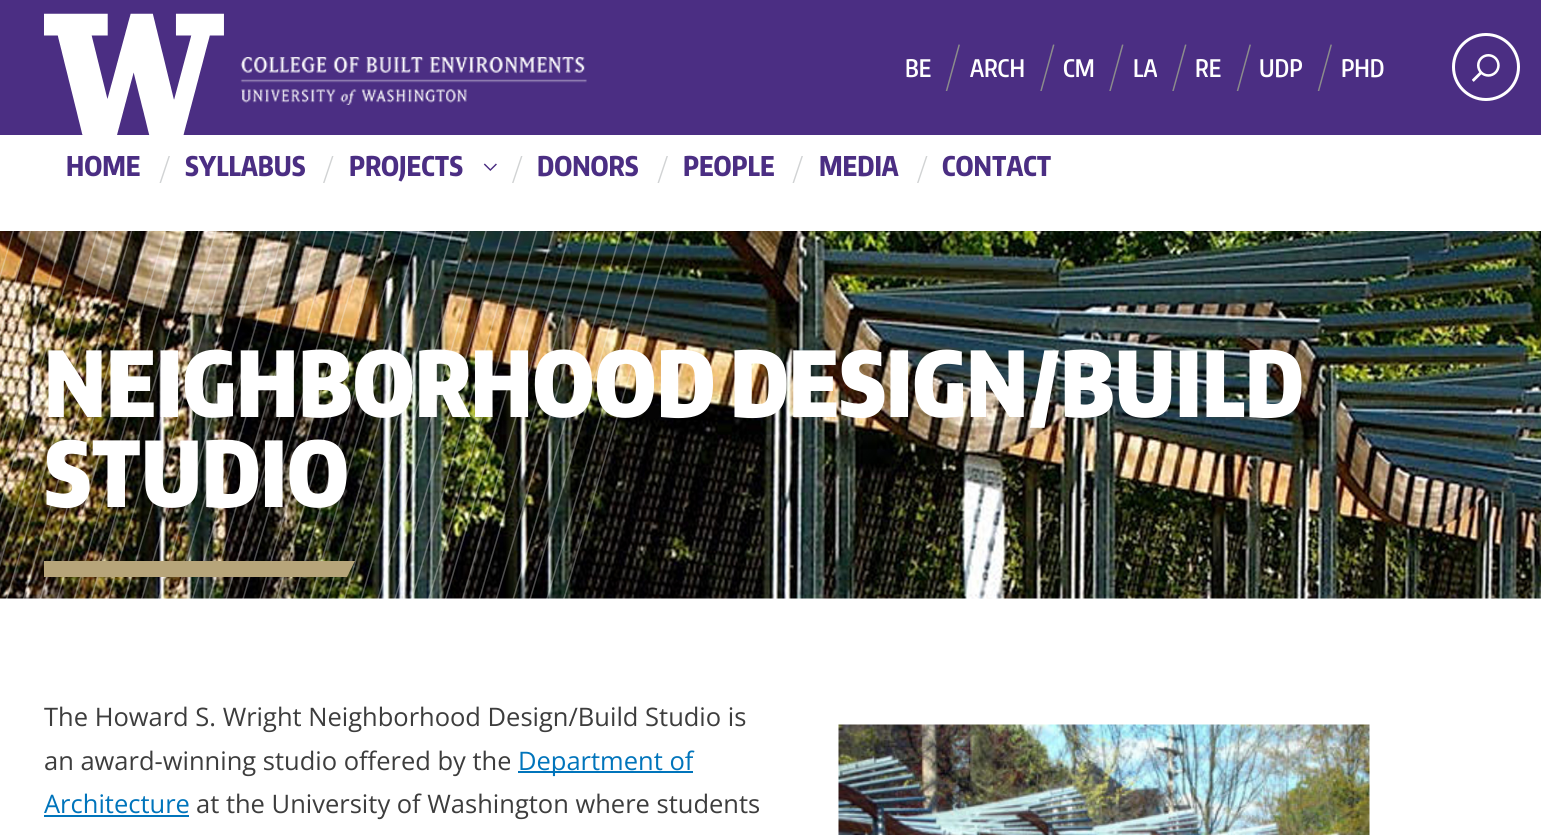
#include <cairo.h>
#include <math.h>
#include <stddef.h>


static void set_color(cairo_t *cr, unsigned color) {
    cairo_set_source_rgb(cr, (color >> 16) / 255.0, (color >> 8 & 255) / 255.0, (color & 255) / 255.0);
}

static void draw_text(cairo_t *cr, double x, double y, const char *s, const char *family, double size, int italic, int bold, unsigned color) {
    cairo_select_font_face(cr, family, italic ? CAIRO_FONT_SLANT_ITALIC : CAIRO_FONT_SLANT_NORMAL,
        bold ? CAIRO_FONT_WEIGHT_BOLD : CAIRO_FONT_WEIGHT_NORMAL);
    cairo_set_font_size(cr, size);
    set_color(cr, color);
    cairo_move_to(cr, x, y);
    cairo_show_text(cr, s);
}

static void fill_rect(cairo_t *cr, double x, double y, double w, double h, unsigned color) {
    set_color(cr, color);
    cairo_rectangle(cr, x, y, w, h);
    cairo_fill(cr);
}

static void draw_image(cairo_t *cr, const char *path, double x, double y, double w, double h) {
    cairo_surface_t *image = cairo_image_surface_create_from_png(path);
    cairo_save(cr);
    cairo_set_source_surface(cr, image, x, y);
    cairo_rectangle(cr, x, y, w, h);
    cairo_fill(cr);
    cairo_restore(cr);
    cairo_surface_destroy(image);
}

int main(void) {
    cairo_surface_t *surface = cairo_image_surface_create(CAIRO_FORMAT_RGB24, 1541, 835);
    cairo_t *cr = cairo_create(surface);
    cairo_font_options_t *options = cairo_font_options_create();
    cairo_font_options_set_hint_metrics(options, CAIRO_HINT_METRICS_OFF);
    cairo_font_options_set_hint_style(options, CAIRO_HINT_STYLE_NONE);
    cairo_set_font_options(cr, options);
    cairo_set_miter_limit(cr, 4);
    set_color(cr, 0xFFFFFF);
    cairo_paint(cr);
    fill_rect(cr, 0, 0, 1541, 135, 0x4B2E83);
    draw_image(cr, "assets/img1.png", 44, 13, 180, 122);
    draw_image(cr, "assets/img2.png", 240, 57, 347, 48);
    draw_text(cr, 905, 77, "BE", "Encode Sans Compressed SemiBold", 24, 0, 0, 0xFFFFFF);
    draw_image(cr, "assets/img3.png", 945, 44, 15, 47);
    draw_text(cr, 970, 77, "ARCH", "Encode Sans Compressed SemiBold", 24, 0, 0, 0xFFFFFF);
    draw_image(cr, "assets/img4.png", 1040, 44, 15, 47);
    draw_text(cr, 1063, 77, "CM", "Encode Sans Compressed SemiBold", 24, 0, 0, 0xFFFFFF);
    draw_image(cr, "assets/img4.png", 1109, 44, 15, 47);
    draw_text(cr, 1133, 77, "LA", "Encode Sans Compressed SemiBold", 24, 0, 0, 0xFFFFFF);
    draw_image(cr, "assets/img4.png", 1172, 44, 15, 47);
    draw_text(cr, 1195, 77, "RE", "Encode Sans Compressed SemiBold", 24, 0, 0, 0xFFFFFF);
    draw_image(cr, "assets/img3.png", 1236, 44, 15, 47);
    draw_text(cr, 1259, 77, "UDP", "Encode Sans Compressed SemiBold", 24, 0, 0, 0xFFFFFF);
    draw_image(cr, "assets/img3.png", 1317, 44, 15, 47);
    draw_text(cr, 1341, 77, "PHD", "Encode Sans Compressed SemiBold", 24, 0, 0, 0xFFFFFF);
    cairo_new_path(cr);
    cairo_arc(cr, 1486, 67, 32.5, 0, 2 * M_PI);
    cairo_set_line_width(cr, 3);
    cairo_stroke(cr);
    draw_image(cr, "assets/img5.png", 1472, 54, 28, 28);
    draw_text(cr, 66, 176, "HOME", "Encode Sans Compressed ExtraBold", 27, 0, 0, 0x4B2E83);
    set_color(cr, 0xD1D3D4);
    cairo_new_path(cr);
    cairo_move_to(cr, 168.5, 156);
    cairo_line_to(cr, 159.5, 183);
    cairo_line_to(cr, 161, 183);
    cairo_line_to(cr, 170, 156);
    cairo_close_path(cr);
    cairo_fill(cr);
    draw_text(cr, 185, 176, "SYLLABUS", "Encode Sans Compressed ExtraBold", 27, 0, 0, 0x4B2E83);
    set_color(cr, 0xD1D3D4);
    cairo_new_path(cr);
    cairo_move_to(cr, 332, 156);
    cairo_line_to(cr, 323, 183);
    cairo_line_to(cr, 324.5, 183);
    cairo_line_to(cr, 333.5, 156);
    cairo_close_path(cr);
    cairo_fill(cr);
    draw_text(cr, 349, 176, "PROJECTS", "Encode Sans Compressed ExtraBold", 27, 0, 0, 0x4B2E83);
    draw_image(cr, "assets/img6.png", 483, 163, 14, 8);
    set_color(cr, 0xD1D3D4);
    cairo_new_path(cr);
    cairo_move_to(cr, 521, 156);
    cairo_line_to(cr, 512, 183);
    cairo_line_to(cr, 513.5, 183);
    cairo_line_to(cr, 522.5, 156);
    cairo_close_path(cr);
    cairo_fill(cr);
    draw_text(cr, 537, 176, "DONORS", "Encode Sans Compressed ExtraBold", 27, 0, 0, 0x4B2E83);
    set_color(cr, 0xD1D3D4);
    cairo_new_path(cr);
    cairo_move_to(cr, 666.5, 156);
    cairo_line_to(cr, 657.5, 183);
    cairo_line_to(cr, 659, 183);
    cairo_line_to(cr, 668, 156);
    cairo_close_path(cr);
    cairo_fill(cr);
    draw_text(cr, 683, 176, "PEOPLE", "Encode Sans Compressed ExtraBold", 27, 0, 0, 0x4B2E83);
    set_color(cr, 0xD1D3D4);
    cairo_new_path(cr);
    cairo_move_to(cr, 801.5, 156);
    cairo_line_to(cr, 792.5, 183);
    cairo_line_to(cr, 794, 183);
    cairo_line_to(cr, 803, 156);
    cairo_close_path(cr);
    cairo_fill(cr);
    draw_text(cr, 819, 176, "MEDIA", "Encode Sans Compressed ExtraBold", 27, 0, 0, 0x4B2E83);
    set_color(cr, 0xD1D3D4);
    cairo_new_path(cr);
    cairo_move_to(cr, 926, 156);
    cairo_line_to(cr, 917, 183);
    cairo_line_to(cr, 918.5, 183);
    cairo_line_to(cr, 927.5, 156);
    cairo_close_path(cr);
    cairo_fill(cr);
    draw_text(cr, 942, 176, "CONTACT", "Encode Sans Compressed ExtraBold", 27, 0, 0, 0x4B2E83);
    draw_image(cr, "assets/img7.png", 0, 231, 1541, 368);
    draw_text(cr, 44, 417, "NEIGHBORHOOD DESIGN/BUILD", "Encode Sans Compressed Black", 90, 0, 0, 0xFFFFFF);
    draw_text(cr, 44, 507, "STUDIO", "Encode Sans Compressed Black", 90, 0, 0, 0xFFFFFF);
    draw_image(cr, "assets/img8.png", 0, 231, 673, 368);
    cairo_save(cr);
    cairo_rectangle(cr, 44, 561, 1455, 17);
    cairo_clip(cr);
    set_color(cr, 0xB7A57A);
    cairo_new_path(cr);
    cairo_move_to(cr, 40, 561);
    cairo_line_to(cr, 355, 561);
    cairo_line_to(cr, 347, 577);
    cairo_line_to(cr, 32, 577);
    cairo_close_path(cr);
    cairo_fill(cr);
    cairo_restore(cr);
    draw_text(cr, 44, 726, "The Howard S. Wright Neighborhood Design/Build Studio is", "Open Sans", 25.5, 0, 0, 0x3D3D3D);
    draw_text(cr, 44, 770, "an award-winning studio offered by the", "Open Sans", 25.5, 0, 0, 0x3D3D3D);
    fill_rect(cr, 518, 771, 175, 2, 0x0074BB);
    draw_text(cr, 518, 770, "Department of", "Open Sans", 25.5, 0, 0, 0x0074BB);
    draw_text(cr, 44, 813, "Architecture", "Open Sans", 25.5, 0, 0, 0x0074BB);
    fill_rect(cr, 44, 815, 145, 2, 0x0074BB);
    draw_text(cr, 196, 813, "at the University of Washington where students", "Open Sans", 25.5, 0, 0, 0x3D3D3D);
    draw_image(cr, "assets/img9.png", 838, 724, 532, 111);
    cairo_surface_write_to_png(surface, "output.png");
    cairo_font_options_destroy(options);
    cairo_destroy(cr);
    cairo_surface_destroy(surface);
    return 0;
}
